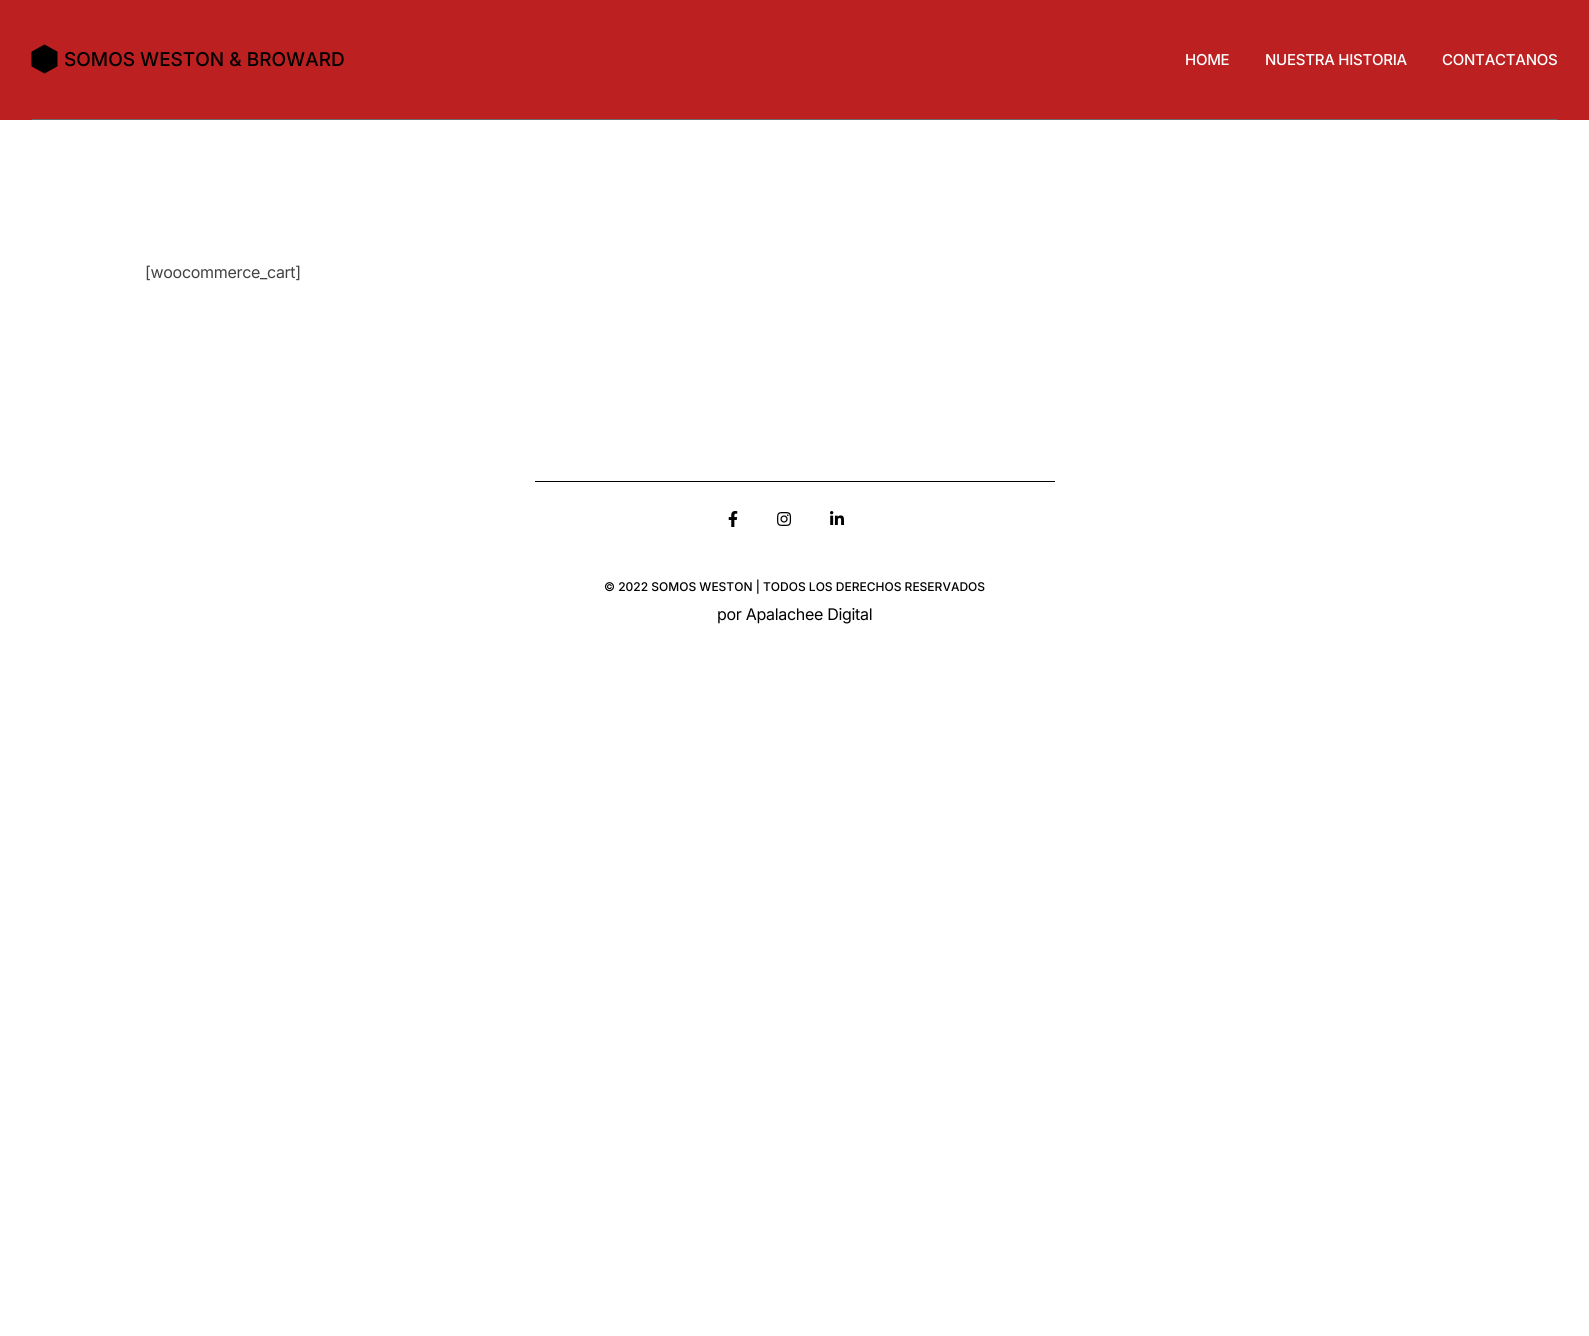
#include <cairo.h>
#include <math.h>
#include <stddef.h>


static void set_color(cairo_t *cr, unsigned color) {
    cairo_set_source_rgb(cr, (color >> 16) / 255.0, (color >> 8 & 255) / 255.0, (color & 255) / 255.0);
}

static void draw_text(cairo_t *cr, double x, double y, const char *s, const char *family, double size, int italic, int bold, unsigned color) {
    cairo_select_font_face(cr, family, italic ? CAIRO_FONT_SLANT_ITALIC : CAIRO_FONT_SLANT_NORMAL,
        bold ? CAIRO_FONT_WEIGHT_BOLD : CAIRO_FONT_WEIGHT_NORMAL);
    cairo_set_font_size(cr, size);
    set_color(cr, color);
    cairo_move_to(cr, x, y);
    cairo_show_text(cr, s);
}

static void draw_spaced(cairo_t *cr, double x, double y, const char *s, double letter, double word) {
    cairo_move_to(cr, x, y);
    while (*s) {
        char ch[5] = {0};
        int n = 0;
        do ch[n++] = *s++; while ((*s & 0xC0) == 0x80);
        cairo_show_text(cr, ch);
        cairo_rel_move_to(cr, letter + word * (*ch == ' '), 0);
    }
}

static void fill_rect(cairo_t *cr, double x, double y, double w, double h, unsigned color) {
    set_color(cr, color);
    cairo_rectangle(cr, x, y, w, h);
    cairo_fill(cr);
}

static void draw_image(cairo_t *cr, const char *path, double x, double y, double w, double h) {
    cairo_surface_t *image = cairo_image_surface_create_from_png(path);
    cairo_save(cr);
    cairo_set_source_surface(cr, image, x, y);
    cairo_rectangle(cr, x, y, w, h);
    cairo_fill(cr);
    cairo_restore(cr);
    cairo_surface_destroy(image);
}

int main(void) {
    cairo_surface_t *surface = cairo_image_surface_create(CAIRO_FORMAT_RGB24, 1589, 1336);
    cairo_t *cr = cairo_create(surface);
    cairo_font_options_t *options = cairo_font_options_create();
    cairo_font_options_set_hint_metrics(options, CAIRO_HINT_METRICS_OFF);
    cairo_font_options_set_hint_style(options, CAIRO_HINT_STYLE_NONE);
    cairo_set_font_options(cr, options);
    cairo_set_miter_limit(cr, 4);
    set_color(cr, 0xFFFFFF);
    cairo_paint(cr);
    fill_rect(cr, 0, 0, 1589, 120, 0xBD2021);
    fill_rect(cr, 32, 119, 1525, 1, 0x6B6B6B);
    draw_image(cr, "assets/img1.png", 31, 44, 27, 30);
    draw_text(cr, 64, 66, "SOMOS WESTON & BROWARD", "Inter Medium", 19, 0, 0, 0x000000);
    cairo_set_font_size(cr, 15);
    set_color(cr, 0xFFFFFF);
    draw_spaced(cr, 1185, 65, "HOME", -0.25, 0);
    draw_spaced(cr, 1265, 65, "NUESTRA HISTORIA", -0.25, 0);
    draw_spaced(cr, 1442, 65, "CONTACTANOS", -0.25, 0);
    cairo_select_font_face(cr, "Inter", CAIRO_FONT_SLANT_NORMAL, CAIRO_FONT_WEIGHT_NORMAL);
    cairo_set_font_size(cr, 16);
    set_color(cr, 0x424242);
    draw_spaced(cr, 145, 278, "[woocommerce_cart]", -0.3, 0);
    fill_rect(cr, 535, 481, 520, 1, 0x000000);
    draw_image(cr, "assets/img2.png", 728, 511, 10, 16);
    draw_image(cr, "assets/img3.png", 777, 512, 15, 14);
    draw_image(cr, "assets/img4.png", 830, 511, 14, 14);
    draw_text(cr, 604, 591, "© 2022 SOMOS WESTON | TODOS LOS DERECHOS RESERVADOS", "Inter Medium", 12, 0, 0, 0x000000);
    cairo_select_font_face(cr, "Inter", CAIRO_FONT_SLANT_NORMAL, CAIRO_FONT_WEIGHT_NORMAL);
    cairo_set_font_size(cr, 16);
    draw_spaced(cr, 717, 620, "por Apalachee Digital", -0.3, 0);
    cairo_surface_write_to_png(surface, "output.png");
    cairo_font_options_destroy(options);
    cairo_destroy(cr);
    cairo_surface_destroy(surface);
    return 0;
}
